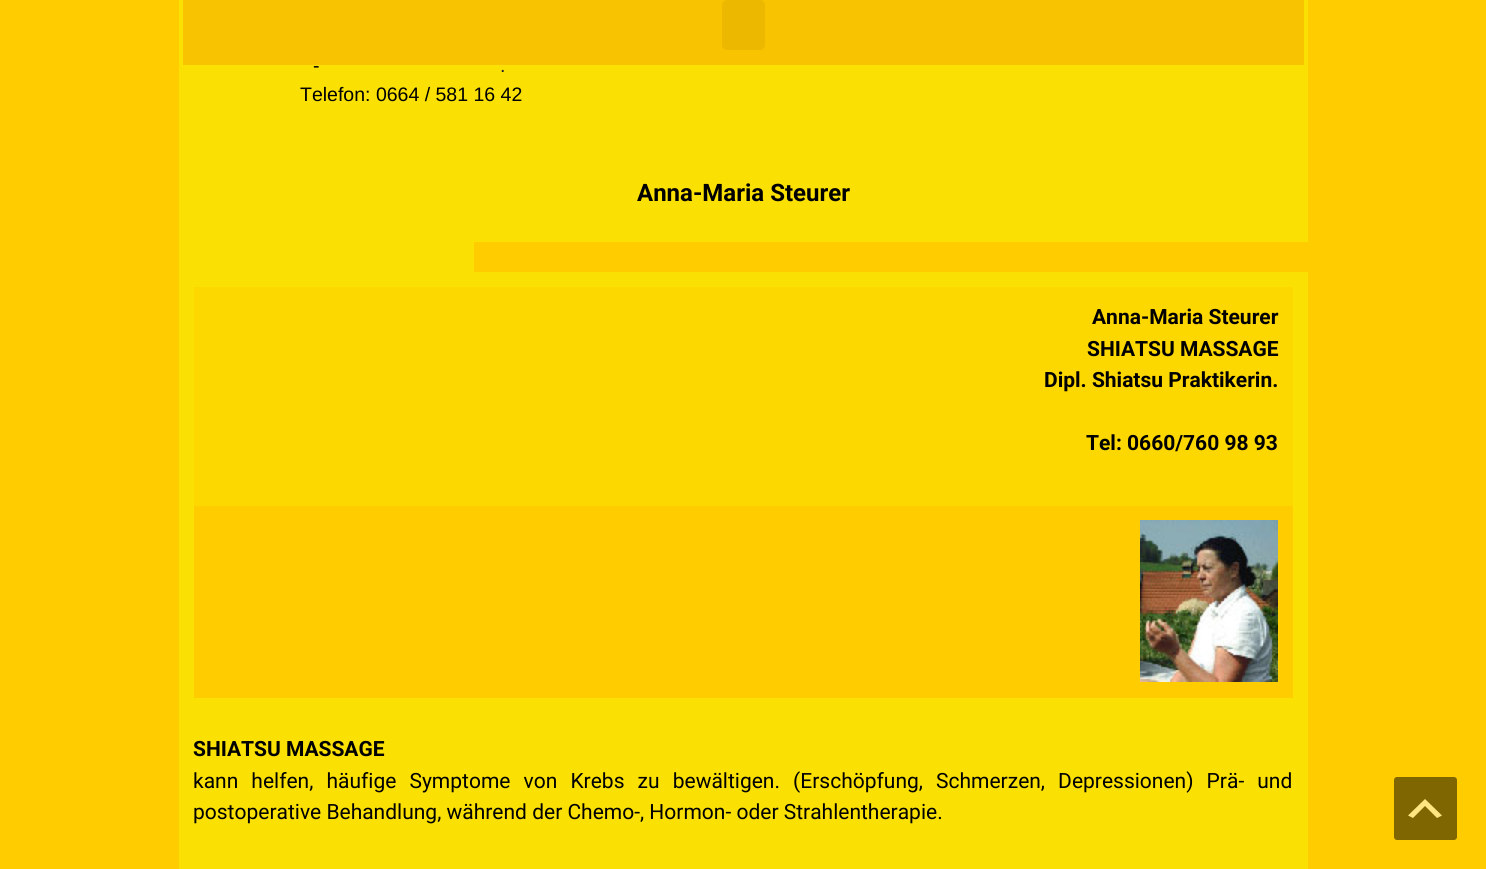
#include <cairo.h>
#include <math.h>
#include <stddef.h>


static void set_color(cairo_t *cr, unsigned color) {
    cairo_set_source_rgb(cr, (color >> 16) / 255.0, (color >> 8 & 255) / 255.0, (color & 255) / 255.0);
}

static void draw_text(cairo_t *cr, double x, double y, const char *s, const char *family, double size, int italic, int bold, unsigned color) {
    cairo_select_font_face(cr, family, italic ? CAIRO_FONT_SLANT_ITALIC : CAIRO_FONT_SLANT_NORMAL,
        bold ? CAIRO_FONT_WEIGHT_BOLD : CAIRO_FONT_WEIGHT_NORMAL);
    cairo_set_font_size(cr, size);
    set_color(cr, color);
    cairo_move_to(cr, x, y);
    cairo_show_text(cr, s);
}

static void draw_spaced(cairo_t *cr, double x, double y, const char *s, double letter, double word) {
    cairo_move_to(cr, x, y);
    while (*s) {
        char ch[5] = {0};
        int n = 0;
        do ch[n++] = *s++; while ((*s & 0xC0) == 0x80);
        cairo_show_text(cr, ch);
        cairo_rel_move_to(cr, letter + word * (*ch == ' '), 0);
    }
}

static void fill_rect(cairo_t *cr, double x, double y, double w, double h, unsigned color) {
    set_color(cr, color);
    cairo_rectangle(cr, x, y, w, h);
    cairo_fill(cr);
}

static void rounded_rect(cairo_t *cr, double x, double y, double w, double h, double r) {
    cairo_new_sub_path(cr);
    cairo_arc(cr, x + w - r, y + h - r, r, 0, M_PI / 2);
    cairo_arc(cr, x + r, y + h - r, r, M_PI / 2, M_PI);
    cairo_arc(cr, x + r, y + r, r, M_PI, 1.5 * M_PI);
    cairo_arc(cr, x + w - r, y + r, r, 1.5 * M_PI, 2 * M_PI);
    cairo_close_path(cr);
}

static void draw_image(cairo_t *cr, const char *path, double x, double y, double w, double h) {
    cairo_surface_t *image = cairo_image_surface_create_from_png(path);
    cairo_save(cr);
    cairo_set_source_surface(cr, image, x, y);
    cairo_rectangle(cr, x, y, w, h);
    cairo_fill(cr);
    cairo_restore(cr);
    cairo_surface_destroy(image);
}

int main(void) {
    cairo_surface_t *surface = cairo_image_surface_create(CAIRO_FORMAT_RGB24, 1486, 869);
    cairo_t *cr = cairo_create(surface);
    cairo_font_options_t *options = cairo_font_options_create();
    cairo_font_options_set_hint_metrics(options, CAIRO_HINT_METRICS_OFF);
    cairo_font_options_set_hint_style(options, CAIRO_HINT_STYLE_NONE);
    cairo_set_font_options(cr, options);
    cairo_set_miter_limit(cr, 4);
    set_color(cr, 0xFFCC00);
    cairo_paint(cr);
    fill_rect(cr, 179, 0, 1129, 242, 0xFAE003);
    fill_rect(cr, 183, 0, 1121, 65, 0xF8C300);
    set_color(cr, 0xECB900);
    rounded_rect(cr, 722, 0, 43, 50, 5);
    cairo_fill(cr);
    draw_text(cr, 313, 72, "-", "Liberation Sans", 19.5, 0, 0, 0x000000);
    draw_text(cr, 500, 72, ".", "Liberation Sans", 19.5, 0, 0, 0x222222);
    draw_text(cr, 300, 101, "Telefon: 0664 / 581 16 42", "Liberation Sans", 19.5, 0, 0, 0x000000);
    draw_text(cr, 637, 201, "Anna-Maria Steurer", "Roboto", 24, 0, 1, 0x000000);
    fill_rect(cr, 179, 242, 295, 30, 0xFAE003);
    fill_rect(cr, 179, 272, 1129, 597, 0xFAE003);
    fill_rect(cr, 194, 287, 1099, 219, 0xFDD700);
    draw_text(cr, 1092, 324, "Anna-Maria Steurer", "Roboto", 21, 0, 1, 0x000000);
    draw_text(cr, 1087, 356, "SHIATSU MASSAGE", "Roboto", 21, 0, 1, 0x000000);
    draw_text(cr, 1044, 387, "Dipl. Shiatsu Praktikerin.", "Roboto", 21, 0, 1, 0x000000);
    draw_text(cr, 1086, 450, "Tel: 0660/760 98 93", "Roboto", 21, 0, 1, 0x000000);
    fill_rect(cr, 194, 506, 1099, 192, 0xFFCC00);
    draw_image(cr, "assets/img1.png", 1140, 520, 138, 162);
    draw_text(cr, 193, 756, "SHIATSU MASSAGE", "Roboto", 21, 0, 1, 0x000000);
    cairo_select_font_face(cr, "Roboto", CAIRO_FONT_SLANT_NORMAL, CAIRO_FONT_WEIGHT_NORMAL);
    draw_spaced(cr, 193, 788, "kann helfen, häufige Symptome von Krebs zu bewältigen. (Erschöpfung, Schmerzen, Depressionen) Prä- und", 0, 7.9);
    draw_text(cr, 193, 819, "postoperative Behandlung, während der Chemo-, Hormon- oder Strahlentherapie.", "Roboto", 21, 0, 0, 0x000000);
    set_color(cr, 0x806600);
    rounded_rect(cr, 1394, 777, 63, 63, 3);
    cairo_fill(cr);
    set_color(cr, 0xFFE680);
    cairo_new_path(cr);
    cairo_move_to(cr, 1437, 818);
    cairo_line_to(cr, 1425, 806);
    cairo_line_to(cr, 1413, 818);
    cairo_line_to(cr, 1408, 815.5);
    cairo_line_to(cr, 1425, 799);
    cairo_line_to(cr, 1442, 815.5);
    cairo_close_path(cr);
    cairo_fill(cr);
    cairo_surface_write_to_png(surface, "output.png");
    cairo_font_options_destroy(options);
    cairo_destroy(cr);
    cairo_surface_destroy(surface);
    return 0;
}
